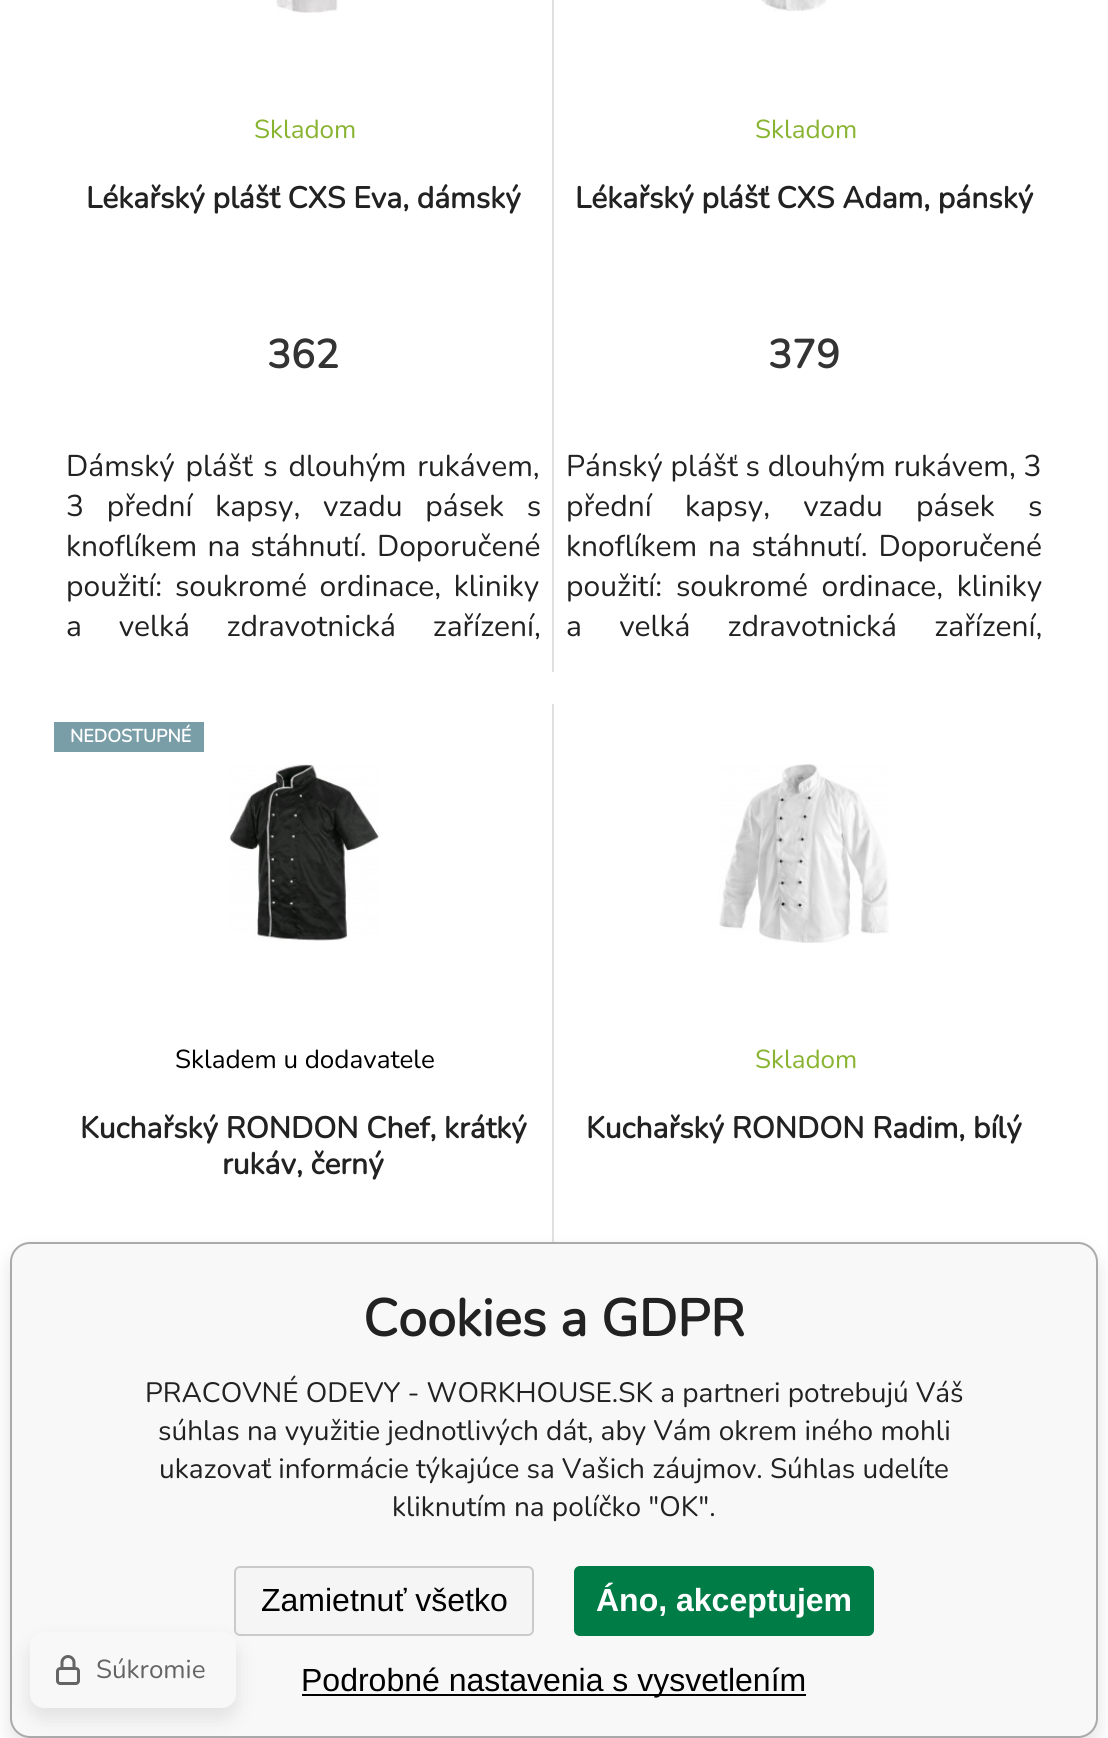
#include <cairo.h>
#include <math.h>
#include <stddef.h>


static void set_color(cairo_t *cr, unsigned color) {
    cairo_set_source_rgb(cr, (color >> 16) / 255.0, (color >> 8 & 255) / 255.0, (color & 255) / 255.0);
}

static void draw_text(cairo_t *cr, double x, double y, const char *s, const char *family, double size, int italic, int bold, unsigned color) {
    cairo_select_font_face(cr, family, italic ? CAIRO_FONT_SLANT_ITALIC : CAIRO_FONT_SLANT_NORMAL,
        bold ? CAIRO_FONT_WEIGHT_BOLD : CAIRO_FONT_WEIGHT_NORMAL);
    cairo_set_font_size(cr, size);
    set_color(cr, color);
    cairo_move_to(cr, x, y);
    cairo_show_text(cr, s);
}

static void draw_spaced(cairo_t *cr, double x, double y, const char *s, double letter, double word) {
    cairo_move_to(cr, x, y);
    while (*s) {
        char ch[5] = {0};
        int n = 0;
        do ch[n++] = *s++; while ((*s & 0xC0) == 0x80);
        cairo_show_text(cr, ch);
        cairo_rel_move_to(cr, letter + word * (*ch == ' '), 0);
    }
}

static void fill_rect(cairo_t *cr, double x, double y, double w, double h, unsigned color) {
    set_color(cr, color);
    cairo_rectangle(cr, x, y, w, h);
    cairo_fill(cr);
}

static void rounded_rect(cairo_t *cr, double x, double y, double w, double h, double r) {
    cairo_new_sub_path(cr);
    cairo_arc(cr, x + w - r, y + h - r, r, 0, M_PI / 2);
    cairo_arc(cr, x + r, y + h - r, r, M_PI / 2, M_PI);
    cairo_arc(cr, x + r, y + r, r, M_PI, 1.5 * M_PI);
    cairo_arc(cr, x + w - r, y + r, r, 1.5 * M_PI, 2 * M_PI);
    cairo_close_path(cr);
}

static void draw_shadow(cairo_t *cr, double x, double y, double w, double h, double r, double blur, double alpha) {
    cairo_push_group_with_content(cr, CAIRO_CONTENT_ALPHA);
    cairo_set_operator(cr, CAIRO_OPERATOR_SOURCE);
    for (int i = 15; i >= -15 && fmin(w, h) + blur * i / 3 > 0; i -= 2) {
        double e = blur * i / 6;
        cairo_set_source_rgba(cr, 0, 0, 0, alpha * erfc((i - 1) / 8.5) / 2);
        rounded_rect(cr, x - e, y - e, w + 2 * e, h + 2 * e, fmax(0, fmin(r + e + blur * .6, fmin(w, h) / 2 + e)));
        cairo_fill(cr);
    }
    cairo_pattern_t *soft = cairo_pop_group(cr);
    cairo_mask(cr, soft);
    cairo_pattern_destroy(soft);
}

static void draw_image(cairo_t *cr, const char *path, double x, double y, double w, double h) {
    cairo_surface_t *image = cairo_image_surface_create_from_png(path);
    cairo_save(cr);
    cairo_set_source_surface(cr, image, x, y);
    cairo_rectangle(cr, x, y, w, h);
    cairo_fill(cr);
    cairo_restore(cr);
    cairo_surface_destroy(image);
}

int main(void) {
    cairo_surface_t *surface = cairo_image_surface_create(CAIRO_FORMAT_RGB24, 1108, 1738);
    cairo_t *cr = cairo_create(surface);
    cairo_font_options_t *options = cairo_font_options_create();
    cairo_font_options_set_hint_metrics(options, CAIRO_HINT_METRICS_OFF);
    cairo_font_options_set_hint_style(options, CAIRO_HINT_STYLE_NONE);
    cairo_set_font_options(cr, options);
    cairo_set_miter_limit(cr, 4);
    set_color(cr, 0xFFFFFF);
    cairo_paint(cr);
    fill_rect(cr, 552, 0, 2, 672, 0xE0E0E0);
    draw_image(cr, "assets/img1.png", 276, 0, 62, 13);
    draw_text(cr, 254, 138, "Skladom", "Nunito ExtraLight", 26, 0, 0, 0x89B432);
    draw_text(cr, 267, 368, "362", "Nunito", 40, 0, 1, 0x333333);
    draw_text(cr, 86, 208, "Lékařský plášť CXS Eva, dámský", "Nunito", 30, 0, 1, 0x222222);
    cairo_select_font_face(cr, "Nunito ExtraLight", CAIRO_FONT_SLANT_NORMAL, CAIRO_FONT_WEIGHT_NORMAL);
    draw_spaced(cr, 66, 476, "Dámský plášť s dlouhým rukávem,", 0, 3);
    draw_spaced(cr, 66, 516, "3 přední kapsy, vzadu pásek s", 0, 15);
    draw_spaced(cr, 66, 556, "knoflíkem na stáhnutí. Doporučené", 0, 2.5);
    draw_spaced(cr, 66, 596, "použití: soukromé ordinace, kliniky", 0, 5);
    draw_spaced(cr, 66, 636, "a velká zdravotnická zařízení,", 0, 29);
    draw_image(cr, "assets/img2.png", 761, 0, 65, 12);
    draw_text(cr, 755, 138, "Skladom", "Nunito ExtraLight", 26, 0, 0, 0x89B432);
    draw_text(cr, 768, 368, "379", "Nunito", 40, 0, 1, 0x333333);
    draw_text(cr, 575, 208, "Lékařský plášť CXS Adam, pánský", "Nunito", 30, 0, 1, 0x222222);
    draw_text(cr, 566, 476, "Pánský plášť s dlouhým rukávem, 3", "Nunito ExtraLight", 30, 0, 0, 0x222222);
    draw_spaced(cr, 566, 516, "přední kapsy, vzadu pásek s", 0, 25.5);
    draw_spaced(cr, 566, 556, "knoflíkem na stáhnutí. Doporučené", 0, 3);
    draw_spaced(cr, 566, 596, "použití: soukromé ordinace, kliniky", 0, 6);
    draw_spaced(cr, 566, 636, "a velká zdravotnická zařízení,", 0, 29.5);
    fill_rect(cr, 552, 704, 2, 538, 0xE0E0E0);
    fill_rect(cr, 54, 722, 150, 30, 0x799EA7);
    draw_text(cr, 70, 742, "NEDOSTUPNÉ", "Nunito", 18, 0, 1, 0xFFFFFF);
    draw_image(cr, "assets/img3.png", 229, 764, 150, 177);
    draw_text(cr, 175, 1068, "Skladem u dodavatele", "Nunito ExtraLight", 26, 0, 0, 0x000000);
    draw_text(cr, 80, 1138, "Kuchařský RONDON Chef, krátký", "Nunito", 30, 0, 1, 0x222222);
    draw_text(cr, 222, 1174, "rukáv, černý", "Nunito", 30, 0, 1, 0x222222);
    draw_image(cr, "assets/img4.png", 719, 764, 170, 179);
    draw_text(cr, 755, 1068, "Skladom", "Nunito ExtraLight", 26, 0, 0, 0x89B432);
    draw_text(cr, 586, 1138, "Kuchařský RONDON Radim, bílý", "Nunito", 30, 0, 1, 0x222222);
    set_color(cr, 0xC8C8C8);
    draw_shadow(cr, 10, 1252, 1088, 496, 20, 10, 0.5);
    set_color(cr, 0xF8F8F8);
    rounded_rect(cr, 11, 1243, 1086, 494, 19);
    cairo_fill_preserve(cr);
    set_color(cr, 0xAAAAAA);
    cairo_stroke(cr);
    draw_text(cr, 363, 1336, "Cookies a GDPR", "Nunito", 52, 0, 1, 0x222222);
    draw_text(cr, 145, 1402, "PRACOVNÉ ODEVY - WORKHOUSE.SK a partneri potrebujú Váš", "Nunito ExtraLight", 28, 0, 0, 0x222222);
    draw_text(cr, 158, 1440, "súhlas na využitie jednotlivých dát, aby Vám okrem iného mohli", "Nunito ExtraLight", 28, 0, 0, 0x222222);
    draw_text(cr, 159, 1478, "ukazovať informácie týkajúce sa Vašich záujmov. Súhlas udelíte", "Nunito ExtraLight", 28, 0, 0, 0x222222);
    draw_text(cr, 392, 1516, "kliknutím na políčko \"OK\".", "Nunito ExtraLight", 28, 0, 0, 0x222222);
    set_color(cr, 0xF5F5F5);
    rounded_rect(cr, 235, 1567, 298, 68, 5);
    cairo_fill_preserve(cr);
    set_color(cr, 0xCACACA);
    cairo_stroke(cr);
    draw_text(cr, 261, 1611, "Zamietnuť všetko", "Liberation Sans", 32, 0, 0, 0x000000);
    set_color(cr, 0x007C47);
    rounded_rect(cr, 575, 1567, 298, 68, 5);
    cairo_fill_preserve(cr);
    cairo_stroke(cr);
    draw_text(cr, 596, 1611, "Áno, akceptujem", "Liberation Sans", 32, 0, 1, 0xFFFFFF);
    fill_rect(cr, 302, 1694, 504, 2, 0x000000);
    draw_text(cr, 301, 1691, "Podrobné nastavenia s vysvetlením", "Liberation Sans", 32, 0, 0, 0x000000);
    set_color(cr, 0xC8C8C8);
    draw_shadow(cr, 30, 1642, 206, 76, 14, 10, 0.5);
    set_color(cr, 0xF8F8F8);
    rounded_rect(cr, 30, 1632, 206, 76, 14);
    cairo_fill(cr);
    draw_image(cr, "assets/img5.png", 56, 1655, 24, 30);
    draw_text(cr, 96, 1678, "Súkromie", "Nunito ExtraLight", 26, 0, 0, 0x646464);
    cairo_surface_write_to_png(surface, "output.png");
    cairo_font_options_destroy(options);
    cairo_destroy(cr);
    cairo_surface_destroy(surface);
    return 0;
}
